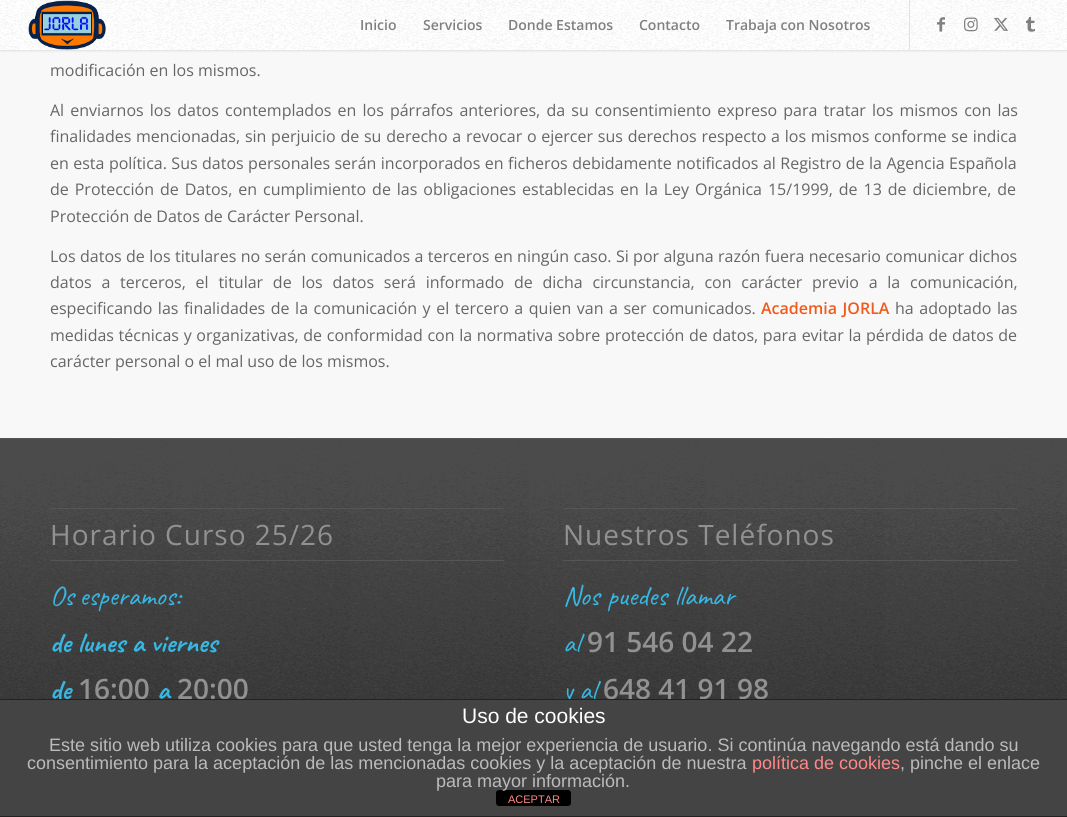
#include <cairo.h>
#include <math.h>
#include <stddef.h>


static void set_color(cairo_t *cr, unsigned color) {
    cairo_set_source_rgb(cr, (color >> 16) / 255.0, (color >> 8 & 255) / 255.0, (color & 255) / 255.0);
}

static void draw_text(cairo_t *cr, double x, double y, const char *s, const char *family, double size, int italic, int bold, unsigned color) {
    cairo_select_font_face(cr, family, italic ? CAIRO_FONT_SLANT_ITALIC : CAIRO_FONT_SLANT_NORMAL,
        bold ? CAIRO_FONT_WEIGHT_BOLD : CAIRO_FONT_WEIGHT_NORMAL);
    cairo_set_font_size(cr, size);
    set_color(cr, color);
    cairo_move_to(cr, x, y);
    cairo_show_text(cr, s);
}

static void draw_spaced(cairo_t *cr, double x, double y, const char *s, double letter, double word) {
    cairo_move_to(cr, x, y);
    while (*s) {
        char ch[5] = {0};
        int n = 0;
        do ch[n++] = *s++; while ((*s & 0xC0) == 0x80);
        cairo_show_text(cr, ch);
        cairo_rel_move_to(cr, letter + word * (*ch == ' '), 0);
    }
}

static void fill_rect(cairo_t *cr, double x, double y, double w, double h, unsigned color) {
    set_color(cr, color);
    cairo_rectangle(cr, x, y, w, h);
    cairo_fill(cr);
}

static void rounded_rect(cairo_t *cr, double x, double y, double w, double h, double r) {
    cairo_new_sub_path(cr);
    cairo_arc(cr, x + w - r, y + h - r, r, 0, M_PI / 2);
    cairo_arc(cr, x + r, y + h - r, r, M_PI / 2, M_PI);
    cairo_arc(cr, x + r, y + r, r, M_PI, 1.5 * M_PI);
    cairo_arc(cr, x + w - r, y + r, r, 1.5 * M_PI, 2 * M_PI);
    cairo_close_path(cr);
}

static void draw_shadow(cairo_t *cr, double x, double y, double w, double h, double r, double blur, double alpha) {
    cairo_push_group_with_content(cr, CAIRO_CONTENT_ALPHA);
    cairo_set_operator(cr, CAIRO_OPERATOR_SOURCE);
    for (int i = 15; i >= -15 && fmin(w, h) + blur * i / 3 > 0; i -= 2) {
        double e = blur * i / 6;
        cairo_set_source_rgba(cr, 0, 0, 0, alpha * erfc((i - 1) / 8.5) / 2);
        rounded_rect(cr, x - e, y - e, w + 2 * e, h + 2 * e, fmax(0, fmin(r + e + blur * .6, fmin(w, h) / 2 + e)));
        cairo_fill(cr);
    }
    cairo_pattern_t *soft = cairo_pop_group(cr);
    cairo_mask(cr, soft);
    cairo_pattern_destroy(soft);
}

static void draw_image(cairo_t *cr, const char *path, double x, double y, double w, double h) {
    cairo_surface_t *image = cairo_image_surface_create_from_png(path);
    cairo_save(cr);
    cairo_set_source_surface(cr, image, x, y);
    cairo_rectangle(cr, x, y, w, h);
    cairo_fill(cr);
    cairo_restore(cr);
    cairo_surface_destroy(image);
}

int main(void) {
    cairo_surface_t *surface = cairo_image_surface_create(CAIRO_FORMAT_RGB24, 1067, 817);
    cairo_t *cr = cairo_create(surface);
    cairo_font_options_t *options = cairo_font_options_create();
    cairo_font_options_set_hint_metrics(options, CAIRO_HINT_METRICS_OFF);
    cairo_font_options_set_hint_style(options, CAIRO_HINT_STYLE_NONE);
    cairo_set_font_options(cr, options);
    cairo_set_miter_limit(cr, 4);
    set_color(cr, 0xF8F8F8);
    cairo_paint(cr);
    set_color(cr, 0x000000);
    draw_shadow(cr, -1, -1, 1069, 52, 0, 1, 0.1);
    fill_rect(cr, 0, 0, 1067, 50, 0xFFFFFF);
    draw_image(cr, "assets/img1.png", 0, 0, 1067, 50);
    draw_image(cr, "assets/img2.png", 28, 0, 78, 50);
    fill_rect(cr, 909, 0, 1, 50, 0xE1E1E1);
    draw_text(cr, 360, 30, "Inicio", "Open Sans SemiBold", 14, 0, 0, 0x808080);
    draw_text(cr, 423, 30, "Servicios", "Open Sans SemiBold", 14, 0, 0, 0x808080);
    draw_text(cr, 508, 30, "Donde Estamos", "Open Sans SemiBold", 14, 0, 0, 0x808080);
    draw_text(cr, 639, 30, "Contacto", "Open Sans SemiBold", 14, 0, 0, 0x808080);
    draw_text(cr, 726, 30, "Trabaja con Nosotros", "Open Sans SemiBold", 14, 0, 0, 0x808080);
    draw_image(cr, "assets/img3.png", 937, 17, 8, 15);
    draw_image(cr, "assets/img4.png", 964, 17, 14, 15);
    draw_image(cr, "assets/img5.png", 994, 17, 14, 14);
    draw_image(cr, "assets/img6.png", 1026, 17, 9, 15);
    draw_text(cr, 50, 76, "modificación en los mismos.", "Open Sans", 16, 0, 0, 0x666666);
    draw_spaced(cr, 50, 116, "Al enviarnos los datos contemplados en los párrafos anteriores, da su consentimiento expreso para tratar los mismos con las", 0, 2);
    draw_spaced(cr, 50, 142, "finalidades mencionadas, sin perjuicio de su derecho a revocar o ejercer sus derechos respecto a los mismos conforme se indica", 0, 0.6);
    draw_spaced(cr, 50, 169, "en esta política. Sus datos personales serán incorporados en ficheros debidamente notificados al Registro de la Agencia Española", 0, 0.3);
    draw_spaced(cr, 50, 195, "de Protección de Datos, en cumplimiento de las obligaciones establecidas en la Ley Orgánica 15/1999, de 13 de diciembre, de", 0, 1.8);
    draw_text(cr, 50, 222, "Protección de Datos de Carácter Personal.", "Open Sans", 16, 0, 0, 0x666666);
    draw_spaced(cr, 50, 262, "Los datos de los titulares no serán comunicados a terceros en ningún caso. Si por alguna razón fuera necesario comunicar dichos", 0, 0.25);
    draw_spaced(cr, 50, 288, "datos a terceros, el titular de los datos será informado de dicha circunstancia, con carácter previo a la comunicación,", 0, 5.6);
    draw_spaced(cr, 50, 314, "especificando las finalidades de la comunicación y el tercero a quien van a ser comunicados.", 0, 1.4);
    cairo_select_font_face(cr, "Open Sans SemiBold", CAIRO_FONT_SLANT_NORMAL, CAIRO_FONT_WEIGHT_NORMAL);
    set_color(cr, 0xF05A1A);
    draw_spaced(cr, 761, 314, "Academia JORLA", 0, 1.4);
    cairo_select_font_face(cr, "Open Sans", CAIRO_FONT_SLANT_NORMAL, CAIRO_FONT_WEIGHT_NORMAL);
    set_color(cr, 0x666666);
    draw_spaced(cr, 895, 314, "ha adoptado las", 0, 1.4);
    draw_spaced(cr, 50, 341, "medidas técnicas y organizativas, de conformidad con la normativa sobre protección de datos, para evitar la pérdida de datos de", 0, 0.5);
    draw_text(cr, 50, 367, "carácter personal o el mal uso de los mismos.", "Open Sans", 16, 0, 0, 0x666666);
    fill_rect(cr, 0, 439, 1067, 260, 0x333333);
    draw_image(cr, "assets/img7.png", 0, 439, 1067, 260);
    fill_rect(cr, 0, 438, 1067, 1, 0x555555);
    fill_rect(cr, 50, 508, 454, 1, 0x555555);
    fill_rect(cr, 50, 560, 454, 1, 0x555555);
    cairo_set_font_size(cr, 28);
    set_color(cr, 0x919191);
    draw_spaced(cr, 50, 545, "Horario Curso 25/26", 1, 0);
    cairo_select_font_face(cr, "Caveat", CAIRO_FONT_SLANT_NORMAL, CAIRO_FONT_WEIGHT_NORMAL);
    set_color(cr, 0x37B7E2);
    draw_spaced(cr, 50, 605, "Os esperamos:", 0, -1);
    draw_text(cr, 50, 652, "de lunes a viernes", "Caveat", 28, 0, 1, 0x37B7E2);
    draw_text(cr, 50, 699, "de", "Caveat", 28, 0, 1, 0x37B7E2);
    draw_text(cr, 78, 699, "16:00", "Open Sans SemiBold", 28, 0, 0, 0x919191);
    draw_text(cr, 157, 699, "a", "Caveat", 28, 0, 1, 0x37B7E2);
    draw_text(cr, 177, 699, "20:00", "Open Sans SemiBold", 28, 0, 0, 0x919191);
    fill_rect(cr, 563, 508, 454, 1, 0x555555);
    fill_rect(cr, 563, 560, 454, 1, 0x555555);
    cairo_select_font_face(cr, "Open Sans", CAIRO_FONT_SLANT_NORMAL, CAIRO_FONT_WEIGHT_NORMAL);
    set_color(cr, 0x919191);
    draw_spaced(cr, 563, 545, "Nuestros Teléfonos", 1, 0);
    cairo_select_font_face(cr, "Caveat", CAIRO_FONT_SLANT_NORMAL, CAIRO_FONT_WEIGHT_NORMAL);
    set_color(cr, 0x37B7E2);
    draw_spaced(cr, 563, 605, "Nos puedes llamar", 0, 1);
    draw_text(cr, 563, 652, "al", "Caveat", 28, 0, 0, 0x37B7E2);
    draw_text(cr, 587, 652, "91 546 04 22", "Open Sans SemiBold", 28, 0, 0, 0x919191);
    draw_text(cr, 563, 699, "y al", "Caveat", 28, 0, 0, 0x37B7E2);
    draw_text(cr, 603, 699, "648 41 91 98", "Open Sans SemiBold", 28, 0, 0, 0x919191);
    fill_rect(cr, 0, 700, 1067, 116, 0x444444);
    fill_rect(cr, 0, 699, 1067, 1, 0x222222);
    fill_rect(cr, 0, 816, 1067, 1, 0x222222);
    draw_text(cr, 462, 723, "Uso de cookies", "Liberation Sans", 21, 0, 0, 0xFFFFFF);
    draw_text(cr, 49, 751, "Este sitio web utiliza cookies para que usted tenga la mejor experiencia de usuario. Si continúa navegando está dando su", "Liberation Sans", 18, 0, 0, 0xBBBBBB);
    draw_text(cr, 27, 769, "consentimiento para la aceptación de las mencionadas cookies y la aceptación de nuestra", "Liberation Sans", 18, 0, 0, 0xBBBBBB);
    draw_text(cr, 752, 769, "política de cookies", "Liberation Sans", 18, 0, 0, 0xFF8888);
    draw_text(cr, 900, 769, ", pinche el enlace", "Liberation Sans", 18, 0, 0, 0xBBBBBB);
    set_color(cr, 0x000000);
    rounded_rect(cr, 496, 790, 75, 16, 3);
    cairo_fill(cr);
    draw_text(cr, 436, 787, "para mayor información.", "Liberation Sans", 18, 0, 0, 0xBBBBBB);
    draw_text(cr, 508, 803, "ACEPTAR", "Liberation Sans", 11, 0, 0, 0xFF8888);
    cairo_surface_write_to_png(surface, "output.png");
    cairo_font_options_destroy(options);
    cairo_destroy(cr);
    cairo_surface_destroy(surface);
    return 0;
}
